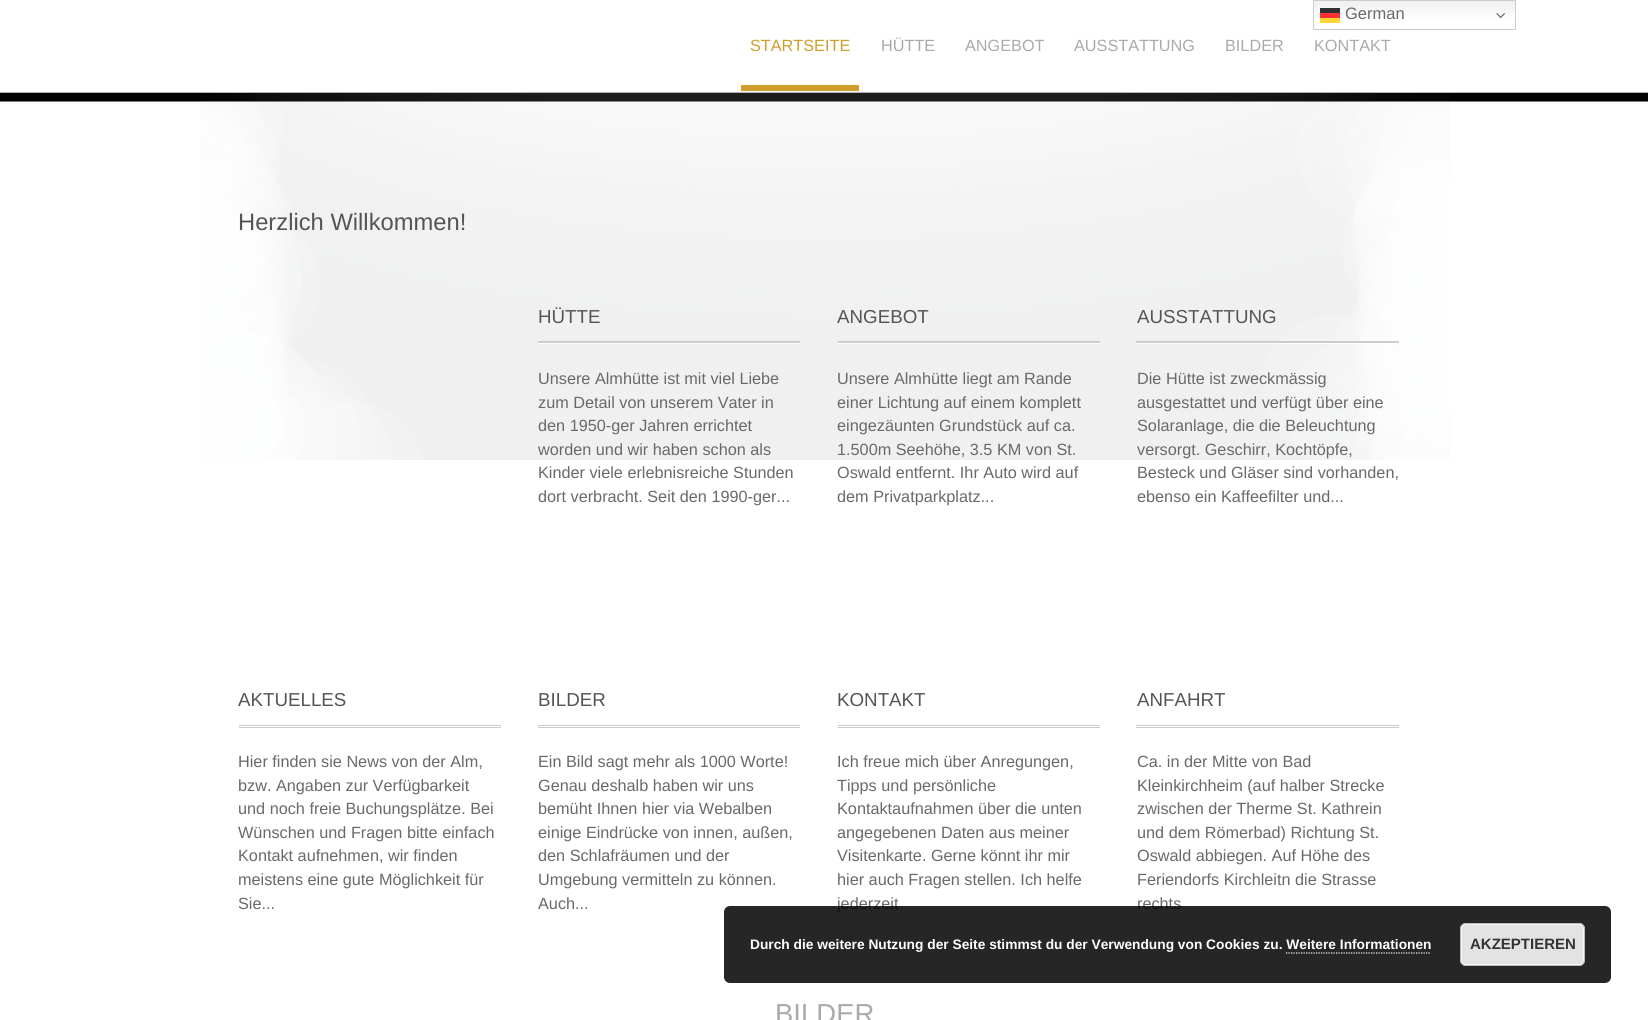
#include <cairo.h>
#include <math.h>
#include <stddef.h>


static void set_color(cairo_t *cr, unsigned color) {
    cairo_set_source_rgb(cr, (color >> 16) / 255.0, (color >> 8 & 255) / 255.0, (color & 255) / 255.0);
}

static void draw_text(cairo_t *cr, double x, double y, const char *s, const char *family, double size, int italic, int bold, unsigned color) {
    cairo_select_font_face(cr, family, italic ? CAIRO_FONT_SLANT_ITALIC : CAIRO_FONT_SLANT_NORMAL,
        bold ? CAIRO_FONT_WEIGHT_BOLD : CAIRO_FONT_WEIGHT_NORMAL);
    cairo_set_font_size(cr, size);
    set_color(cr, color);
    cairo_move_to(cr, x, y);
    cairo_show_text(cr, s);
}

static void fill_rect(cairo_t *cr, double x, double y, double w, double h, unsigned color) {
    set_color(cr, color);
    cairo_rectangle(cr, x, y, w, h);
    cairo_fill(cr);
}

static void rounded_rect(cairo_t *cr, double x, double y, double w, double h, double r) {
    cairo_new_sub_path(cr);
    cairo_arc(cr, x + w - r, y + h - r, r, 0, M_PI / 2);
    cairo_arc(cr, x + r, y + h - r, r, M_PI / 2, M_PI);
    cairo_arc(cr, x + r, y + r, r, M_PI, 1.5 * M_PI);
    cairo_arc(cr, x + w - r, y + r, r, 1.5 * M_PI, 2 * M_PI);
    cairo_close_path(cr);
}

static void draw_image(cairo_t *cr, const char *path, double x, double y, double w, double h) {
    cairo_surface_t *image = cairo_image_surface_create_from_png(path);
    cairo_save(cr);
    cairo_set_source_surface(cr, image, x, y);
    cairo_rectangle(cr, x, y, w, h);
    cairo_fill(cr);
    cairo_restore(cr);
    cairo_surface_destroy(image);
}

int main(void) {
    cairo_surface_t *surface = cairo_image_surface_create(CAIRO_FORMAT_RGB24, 1648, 1020);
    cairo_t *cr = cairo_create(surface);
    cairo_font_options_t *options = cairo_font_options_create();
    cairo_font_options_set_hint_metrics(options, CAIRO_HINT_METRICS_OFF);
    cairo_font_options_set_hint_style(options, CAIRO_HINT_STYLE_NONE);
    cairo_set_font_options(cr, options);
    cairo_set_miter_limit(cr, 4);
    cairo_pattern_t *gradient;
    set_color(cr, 0xFFFFFF);
    cairo_paint(cr);
    draw_image(cr, "assets/img2.png", 0, 0, 1648, 102);
    gradient = cairo_pattern_create_linear(1414, 0, 1414, 30);
    cairo_pattern_add_color_stop_rgba(gradient, 0, 0.937, 0.937, 0.937, 1);
    cairo_pattern_add_color_stop_rgba(gradient, 0.7, 1, 1, 1, 1);
    cairo_set_source(cr, gradient);
    cairo_pattern_destroy(gradient);
    cairo_rectangle(cr, 1314, 1, 201, 17);
    cairo_fill(cr);
    cairo_rectangle(cr, 1313.5, 0.5, 202, 29);
    set_color(cr, 0xCCCCCC);
    cairo_set_line_width(cr, 1);
    cairo_stroke(cr);
    cairo_set_source_rgba(cr, 0, 0, 0, 0.8);
    cairo_rectangle(cr, 1320, 8, 20, 5);
    cairo_fill(cr);
    draw_text(cr, 1345, 19, "German", "Liberation Sans", 16.5, 0, 0, 0x6A6969);
    cairo_set_source_rgba(cr, 1, 0, 0, 0.8);
    cairo_rectangle(cr, 1320, 13, 20, 5);
    cairo_fill(cr);
    draw_image(cr, "assets/img1.png", 1496, 13, 9, 6);
    fill_rect(cr, 1320, 18, 20, 5, 0xFFD633);
    draw_text(cr, 837, 909, "jederzeit", "Liberation Sans", 16.25, 0, 0, 0x6A6969);
    draw_text(cr, 1137, 909, "rechts", "Liberation Sans", 16.25, 0, 0, 0x6A6969);
    cairo_set_source_rgba(cr, 0, 0, 0, 0.85);
    rounded_rect(cr, 724, 906, 887, 77, 6);
    cairo_fill(cr);
    draw_text(cr, 750, 949, "Durch die weitere Nutzung der Seite stimmst du der Verwendung von Cookies zu. Weitere Informationen", "Liberation Sans", 13.75, 0, 1, 0xFFFFFF);
    set_color(cr, 0xE3E3E3);
    rounded_rect(cr, 1460, 923, 125, 43, 6);
    cairo_fill(cr);
    rounded_rect(cr, 1461.5, 924.5, 122, 40, 4.5);
    set_color(cr, 0xF6F6F6);
    cairo_stroke(cr);
    rounded_rect(cr, 1460.5, 923.5, 124, 42, 5.5);
    set_color(cr, 0xBBBBBB);
    cairo_stroke(cr);
    draw_text(cr, 1470, 949, "AKZEPTIEREN", "Liberation Sans", 15, 0, 1, 0x333333);
    cairo_new_path(cr);
    cairo_move_to(cr, 1286, 953);
    cairo_line_to(cr, 1431, 953);
    set_color(cr, 0xFFFFFF);
    cairo_set_line_width(cr, 1.2);
    cairo_set_dash(cr, (double[]){1.25, 1.25}, 2, 0);
    cairo_stroke(cr);
    fill_rect(cr, 741, 85, 118, 6, 0xCE9F2D);
    draw_text(cr, 750, 51, "STARTSEITE", "Liberation Sans", 16.25, 0, 0, 0xCE9F2D);
    draw_text(cr, 881, 51, "HÜTTE", "Liberation Sans", 16.25, 0, 0, 0xAAAAAA);
    draw_text(cr, 965, 51, "ANGEBOT", "Liberation Sans", 16.25, 0, 0, 0xAAAAAA);
    draw_text(cr, 1074, 51, "AUSSTATTUNG", "Liberation Sans", 16.25, 0, 0, 0xAAAAAA);
    draw_text(cr, 1225, 51, "BILDER", "Liberation Sans", 16.25, 0, 0, 0xAAAAAA);
    draw_text(cr, 1314, 51, "KONTAKT", "Liberation Sans", 16.25, 0, 0, 0xAAAAAA);
    draw_image(cr, "assets/img3.png", 200, 93, 1250, 367);
    draw_text(cr, 238, 230, "Herzlich Willkommen!", "Liberation Sans", 23.75, 0, 0, 0x555555);
    draw_text(cr, 538, 323, "HÜTTE", "Liberation Sans", 18.75, 0, 0, 0x555555);
    fill_rect(cr, 538, 341, 262, 2, 0xCCCCCC);
    fill_rect(cr, 538, 343, 262, 1, 0xFFFFFF);
    draw_text(cr, 538, 384, "Unsere Almhütte ist mit viel Liebe", "Liberation Sans", 16.25, 0, 0, 0x6A6969);
    draw_text(cr, 538, 408, "zum Detail von unserem Vater in", "Liberation Sans", 16.25, 0, 0, 0x6A6969);
    draw_text(cr, 538, 431, "den 1950-ger Jahren errichtet", "Liberation Sans", 16.25, 0, 0, 0x6A6969);
    draw_text(cr, 538, 455, "worden und wir haben schon als", "Liberation Sans", 16.25, 0, 0, 0x6A6969);
    draw_text(cr, 538, 478, "Kinder viele erlebnisreiche Stunden", "Liberation Sans", 16.25, 0, 0, 0x6A6969);
    draw_text(cr, 538, 502, "dort verbracht. Seit den 1990-ger...", "Liberation Sans", 16.25, 0, 0, 0x6A6969);
    draw_text(cr, 837, 323, "ANGEBOT", "Liberation Sans", 18.75, 0, 0, 0x555555);
    fill_rect(cr, 838, 341, 262, 2, 0xCCCCCC);
    fill_rect(cr, 838, 343, 262, 1, 0xFFFFFF);
    draw_text(cr, 837, 384, "Unsere Almhütte liegt am Rande", "Liberation Sans", 16.25, 0, 0, 0x6A6969);
    draw_text(cr, 837, 408, "einer Lichtung auf einem komplett", "Liberation Sans", 16.25, 0, 0, 0x6A6969);
    draw_text(cr, 837, 431, "eingezäunten Grundstück auf ca.", "Liberation Sans", 16.25, 0, 0, 0x6A6969);
    draw_text(cr, 837, 455, "1.500m Seehöhe, 3.5 KM von St.", "Liberation Sans", 16.25, 0, 0, 0x6A6969);
    draw_text(cr, 837, 478, "Oswald entfernt. Ihr Auto wird auf", "Liberation Sans", 16.25, 0, 0, 0x6A6969);
    draw_text(cr, 837, 502, "dem Privatparkplatz...", "Liberation Sans", 16.25, 0, 0, 0x6A6969);
    draw_text(cr, 1137, 323, "AUSSTATTUNG", "Liberation Sans", 18.75, 0, 0, 0x555555);
    fill_rect(cr, 1136, 341, 263, 2, 0xCCCCCC);
    fill_rect(cr, 1136, 343, 263, 1, 0xFFFFFF);
    draw_text(cr, 1137, 384, "Die Hütte ist zweckmässig", "Liberation Sans", 16.25, 0, 0, 0x6A6969);
    draw_text(cr, 1137, 408, "ausgestattet und verfügt über eine", "Liberation Sans", 16.25, 0, 0, 0x6A6969);
    draw_text(cr, 1137, 431, "Solaranlage, die die Beleuchtung", "Liberation Sans", 16.25, 0, 0, 0x6A6969);
    draw_text(cr, 1137, 455, "versorgt. Geschirr, Kochtöpfe,", "Liberation Sans", 16.25, 0, 0, 0x6A6969);
    draw_text(cr, 1137, 478, "Besteck und Gläser sind vorhanden,", "Liberation Sans", 16.25, 0, 0, 0x6A6969);
    draw_text(cr, 1137, 502, "ebenso ein Kaffeefilter und...", "Liberation Sans", 16.25, 0, 0, 0x6A6969);
    draw_text(cr, 238, 706, "AKTUELLES", "Liberation Sans", 18.75, 0, 0, 0x555555);
    fill_rect(cr, 239, 725, 262, 3, 0xCCCCCC);
    fill_rect(cr, 239, 726, 262, 1, 0xFFFFFF);
    draw_text(cr, 238, 767, "Hier finden sie News von der Alm,", "Liberation Sans", 16.25, 0, 0, 0x6A6969);
    draw_text(cr, 238, 791, "bzw. Angaben zur Verfügbarkeit", "Liberation Sans", 16.25, 0, 0, 0x6A6969);
    draw_text(cr, 238, 814, "und noch freie Buchungsplätze. Bei", "Liberation Sans", 16.25, 0, 0, 0x6A6969);
    draw_text(cr, 238, 838, "Wünschen und Fragen bitte einfach", "Liberation Sans", 16.25, 0, 0, 0x6A6969);
    draw_text(cr, 238, 861, "Kontakt aufnehmen, wir finden", "Liberation Sans", 16.25, 0, 0, 0x6A6969);
    draw_text(cr, 238, 885, "meistens eine gute Möglichkeit für", "Liberation Sans", 16.25, 0, 0, 0x6A6969);
    draw_text(cr, 238, 909, "Sie...", "Liberation Sans", 16.25, 0, 0, 0x6A6969);
    draw_text(cr, 538, 706, "BILDER", "Liberation Sans", 18.75, 0, 0, 0x555555);
    fill_rect(cr, 538, 725, 262, 3, 0xCCCCCC);
    fill_rect(cr, 538, 726, 262, 1, 0xFFFFFF);
    draw_text(cr, 538, 767, "Ein Bild sagt mehr als 1000 Worte!", "Liberation Sans", 16.25, 0, 0, 0x6A6969);
    draw_text(cr, 538, 791, "Genau deshalb haben wir uns", "Liberation Sans", 16.25, 0, 0, 0x6A6969);
    draw_text(cr, 538, 814, "bemüht Ihnen hier via Webalben", "Liberation Sans", 16.25, 0, 0, 0x6A6969);
    draw_text(cr, 538, 838, "einige Eindrücke von innen, außen,", "Liberation Sans", 16.25, 0, 0, 0x6A6969);
    draw_text(cr, 538, 861, "den Schlafräumen und der", "Liberation Sans", 16.25, 0, 0, 0x6A6969);
    draw_text(cr, 538, 885, "Umgebung vermitteln zu können.", "Liberation Sans", 16.25, 0, 0, 0x6A6969);
    draw_text(cr, 538, 909, "Auch...", "Liberation Sans", 16.25, 0, 0, 0x6A6969);
    draw_text(cr, 837, 706, "KONTAKT", "Liberation Sans", 18.75, 0, 0, 0x555555);
    fill_rect(cr, 838, 725, 262, 3, 0xCCCCCC);
    fill_rect(cr, 838, 726, 262, 1, 0xFFFFFF);
    draw_text(cr, 837, 767, "Ich freue mich über Anregungen,", "Liberation Sans", 16.25, 0, 0, 0x6A6969);
    draw_text(cr, 837, 791, "Tipps und persönliche", "Liberation Sans", 16.25, 0, 0, 0x6A6969);
    draw_text(cr, 837, 814, "Kontaktaufnahmen über die unten", "Liberation Sans", 16.25, 0, 0, 0x6A6969);
    draw_text(cr, 837, 838, "angegebenen Daten aus meiner", "Liberation Sans", 16.25, 0, 0, 0x6A6969);
    draw_text(cr, 837, 861, "Visitenkarte. Gerne könnt ihr mir", "Liberation Sans", 16.25, 0, 0, 0x6A6969);
    draw_text(cr, 837, 885, "hier auch Fragen stellen. Ich helfe", "Liberation Sans", 16.25, 0, 0, 0x6A6969);
    draw_text(cr, 1137, 706, "ANFAHRT", "Liberation Sans", 18.75, 0, 0, 0x555555);
    fill_rect(cr, 1136, 725, 263, 3, 0xCCCCCC);
    fill_rect(cr, 1136, 726, 263, 1, 0xFFFFFF);
    draw_text(cr, 1137, 767, "Ca. in der Mitte von Bad", "Liberation Sans", 16.25, 0, 0, 0x6A6969);
    draw_text(cr, 1137, 791, "Kleinkirchheim (auf halber Strecke", "Liberation Sans", 16.25, 0, 0, 0x6A6969);
    draw_text(cr, 1137, 814, "zwischen der Therme St. Kathrein", "Liberation Sans", 16.25, 0, 0, 0x6A6969);
    draw_text(cr, 1137, 838, "und dem Römerbad) Richtung St.", "Liberation Sans", 16.25, 0, 0, 0x6A6969);
    draw_text(cr, 1137, 861, "Oswald abbiegen. Auf Höhe des", "Liberation Sans", 16.25, 0, 0, 0x6A6969);
    draw_text(cr, 1137, 885, "Feriendorfs Kirchleitn die Strasse", "Liberation Sans", 16.25, 0, 0, 0x6A6969);
    draw_text(cr, 775, 1023, "BILDER", "Liberation Sans", 27.5, 0, 0, 0xAAAAAA);
    cairo_surface_write_to_png(surface, "output.png");
    cairo_font_options_destroy(options);
    cairo_destroy(cr);
    cairo_surface_destroy(surface);
    return 0;
}
